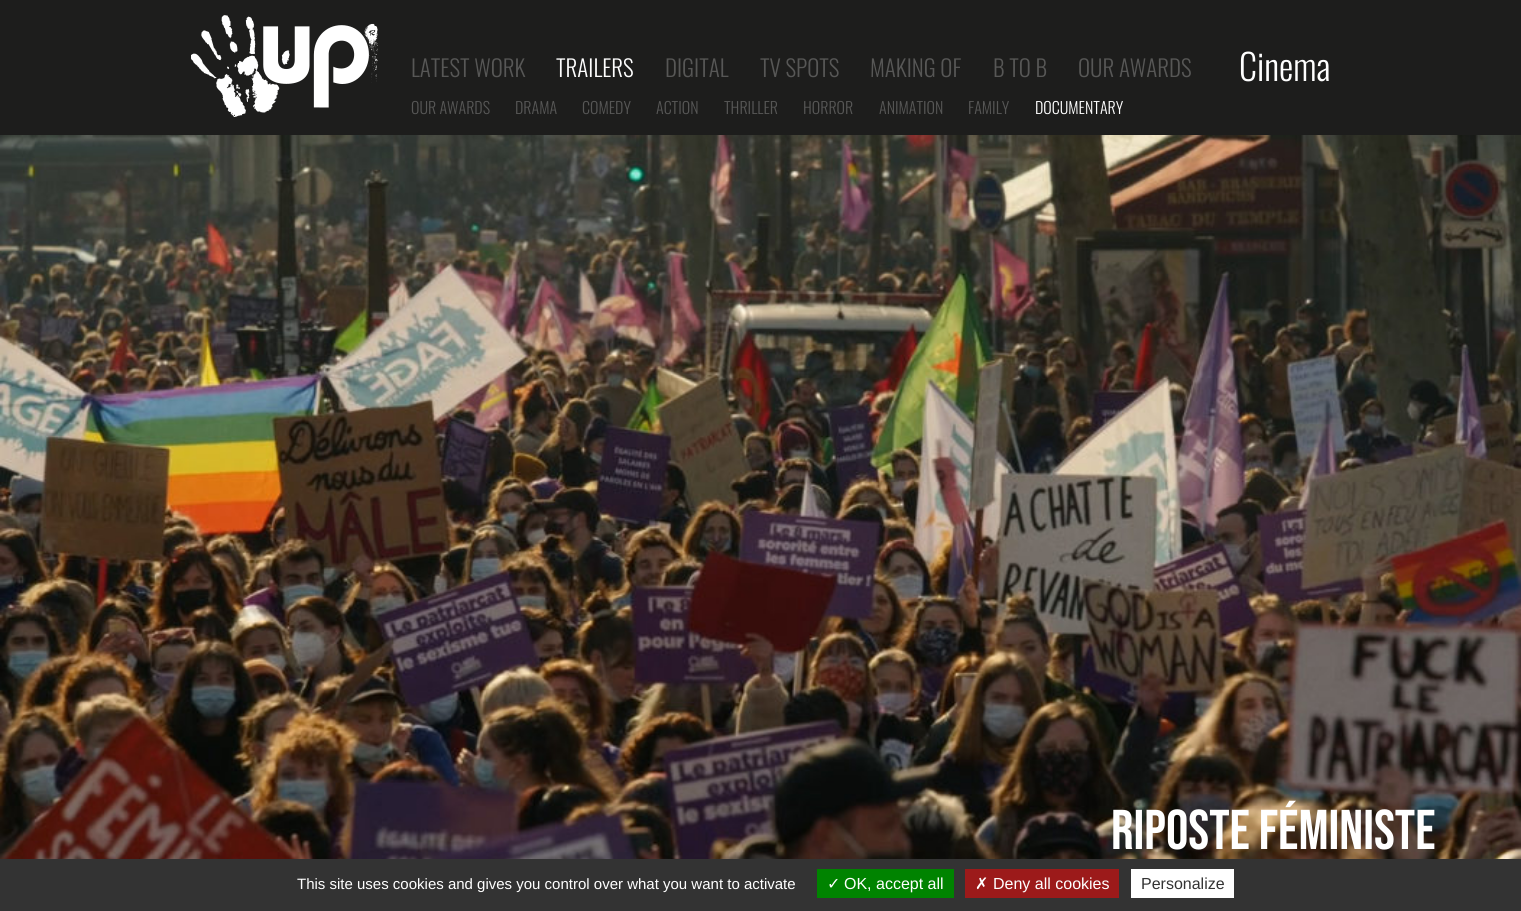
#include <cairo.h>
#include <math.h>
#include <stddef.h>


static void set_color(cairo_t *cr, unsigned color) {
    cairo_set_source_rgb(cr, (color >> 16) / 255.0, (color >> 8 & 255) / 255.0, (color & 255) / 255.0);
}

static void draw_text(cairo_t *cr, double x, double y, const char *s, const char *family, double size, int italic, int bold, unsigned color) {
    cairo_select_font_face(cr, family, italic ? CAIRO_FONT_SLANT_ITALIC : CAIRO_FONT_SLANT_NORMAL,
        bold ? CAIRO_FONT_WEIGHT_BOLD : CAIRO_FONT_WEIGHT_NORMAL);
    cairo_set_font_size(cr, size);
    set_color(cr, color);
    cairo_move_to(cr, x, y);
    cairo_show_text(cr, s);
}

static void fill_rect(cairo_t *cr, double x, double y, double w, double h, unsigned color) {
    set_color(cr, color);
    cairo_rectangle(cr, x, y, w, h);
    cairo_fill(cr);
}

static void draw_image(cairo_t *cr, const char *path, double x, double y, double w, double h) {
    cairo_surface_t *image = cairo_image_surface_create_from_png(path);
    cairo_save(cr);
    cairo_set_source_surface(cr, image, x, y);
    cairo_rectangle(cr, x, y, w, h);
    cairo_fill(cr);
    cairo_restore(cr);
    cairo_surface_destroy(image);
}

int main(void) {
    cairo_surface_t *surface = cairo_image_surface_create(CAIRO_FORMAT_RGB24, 1521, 911);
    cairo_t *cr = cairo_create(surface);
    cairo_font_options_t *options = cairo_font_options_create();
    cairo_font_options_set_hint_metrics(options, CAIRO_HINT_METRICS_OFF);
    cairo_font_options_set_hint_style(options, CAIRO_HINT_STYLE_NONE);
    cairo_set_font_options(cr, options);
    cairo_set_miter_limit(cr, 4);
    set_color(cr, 0x1D1D1C);
    cairo_paint(cr);
    draw_image(cr, "assets/img1.png", 191, 15, 187, 102);
    draw_text(cr, 556, 77, "TRAILERS", "Oswald Light", 23, 0, 0, 0xFFFFFF);
    draw_text(cr, 411, 114, "OUR AWARDS", "Oswald Light", 16, 0, 0, 0x575756);
    draw_text(cr, 515, 114, "DRAMA", "Oswald Light", 16, 0, 0, 0x575756);
    draw_text(cr, 582, 114, "COMEDY", "Oswald Light", 16, 0, 0, 0x575756);
    draw_text(cr, 656, 114, "ACTION", "Oswald Light", 16, 0, 0, 0x575756);
    draw_text(cr, 724, 114, "THRILLER", "Oswald Light", 16, 0, 0, 0x575756);
    draw_text(cr, 803, 114, "HORROR", "Oswald Light", 16, 0, 0, 0x575756);
    draw_text(cr, 879, 114, "ANIMATION", "Oswald Light", 16, 0, 0, 0x575756);
    draw_text(cr, 968, 114, "FAMILY", "Oswald Light", 16, 0, 0, 0x575756);
    draw_text(cr, 1035, 114, "DOCUMENTARY", "Oswald Light", 16, 0, 0, 0xFFFFFF);
    draw_text(cr, 411, 77, "LATEST WORK", "Oswald Light", 23, 0, 0, 0x575756);
    draw_text(cr, 665, 77, "DIGITAL", "Oswald Light", 23, 0, 0, 0x575756);
    draw_text(cr, 760, 77, "TV SPOTS", "Oswald Light", 23, 0, 0, 0x575756);
    draw_text(cr, 870, 77, "MAKING OF", "Oswald Light", 23, 0, 0, 0x575756);
    draw_text(cr, 993, 77, "B TO B", "Oswald Light", 23, 0, 0, 0x575756);
    draw_text(cr, 1078, 77, "OUR AWARDS", "Oswald Light", 23, 0, 0, 0x575756);
    draw_text(cr, 1239, 81, "Cinema", "Oswald Light", 36, 0, 0, 0xFFFFFF);
    draw_image(cr, "assets/img2.png", 0, 135, 1521, 724);
    draw_text(cr, 1111, 849, "Riposte féministe", "Bebas Neue", 56, 0, 0, 0xFFFFFF);
    fill_rect(cr, 0, 859, 1521, 52, 0x333333);
    draw_text(cr, 297, 889, "This site uses cookies and gives you control over what you want to activate", "Liberation Sans", 15, 0, 0, 0xFFFFFF);
    fill_rect(cr, 817, 869, 137, 29, 0x008300);
    draw_text(cr, 827, 889, "✓", "DejaVu Sans", 16, 0, 0, 0xFFFFFF);
    draw_text(cr, 844, 889, "OK, accept all", "Liberation Sans", 16, 0, 0, 0xFFFFFF);
    fill_rect(cr, 965, 869, 154, 29, 0x9C1A1A);
    draw_text(cr, 975, 889, "✗", "DejaVu Sans", 16, 0, 0, 0xFFFFFF);
    draw_text(cr, 993, 889, "Deny all cookies", "Liberation Sans", 16, 0, 0, 0xFFFFFF);
    fill_rect(cr, 1131, 869, 103, 29, 0xFFFFFF);
    draw_text(cr, 1141, 889, "Personalize", "Liberation Sans", 16, 0, 0, 0x333333);
    cairo_surface_write_to_png(surface, "output.png");
    cairo_font_options_destroy(options);
    cairo_destroy(cr);
    cairo_surface_destroy(surface);
    return 0;
}
